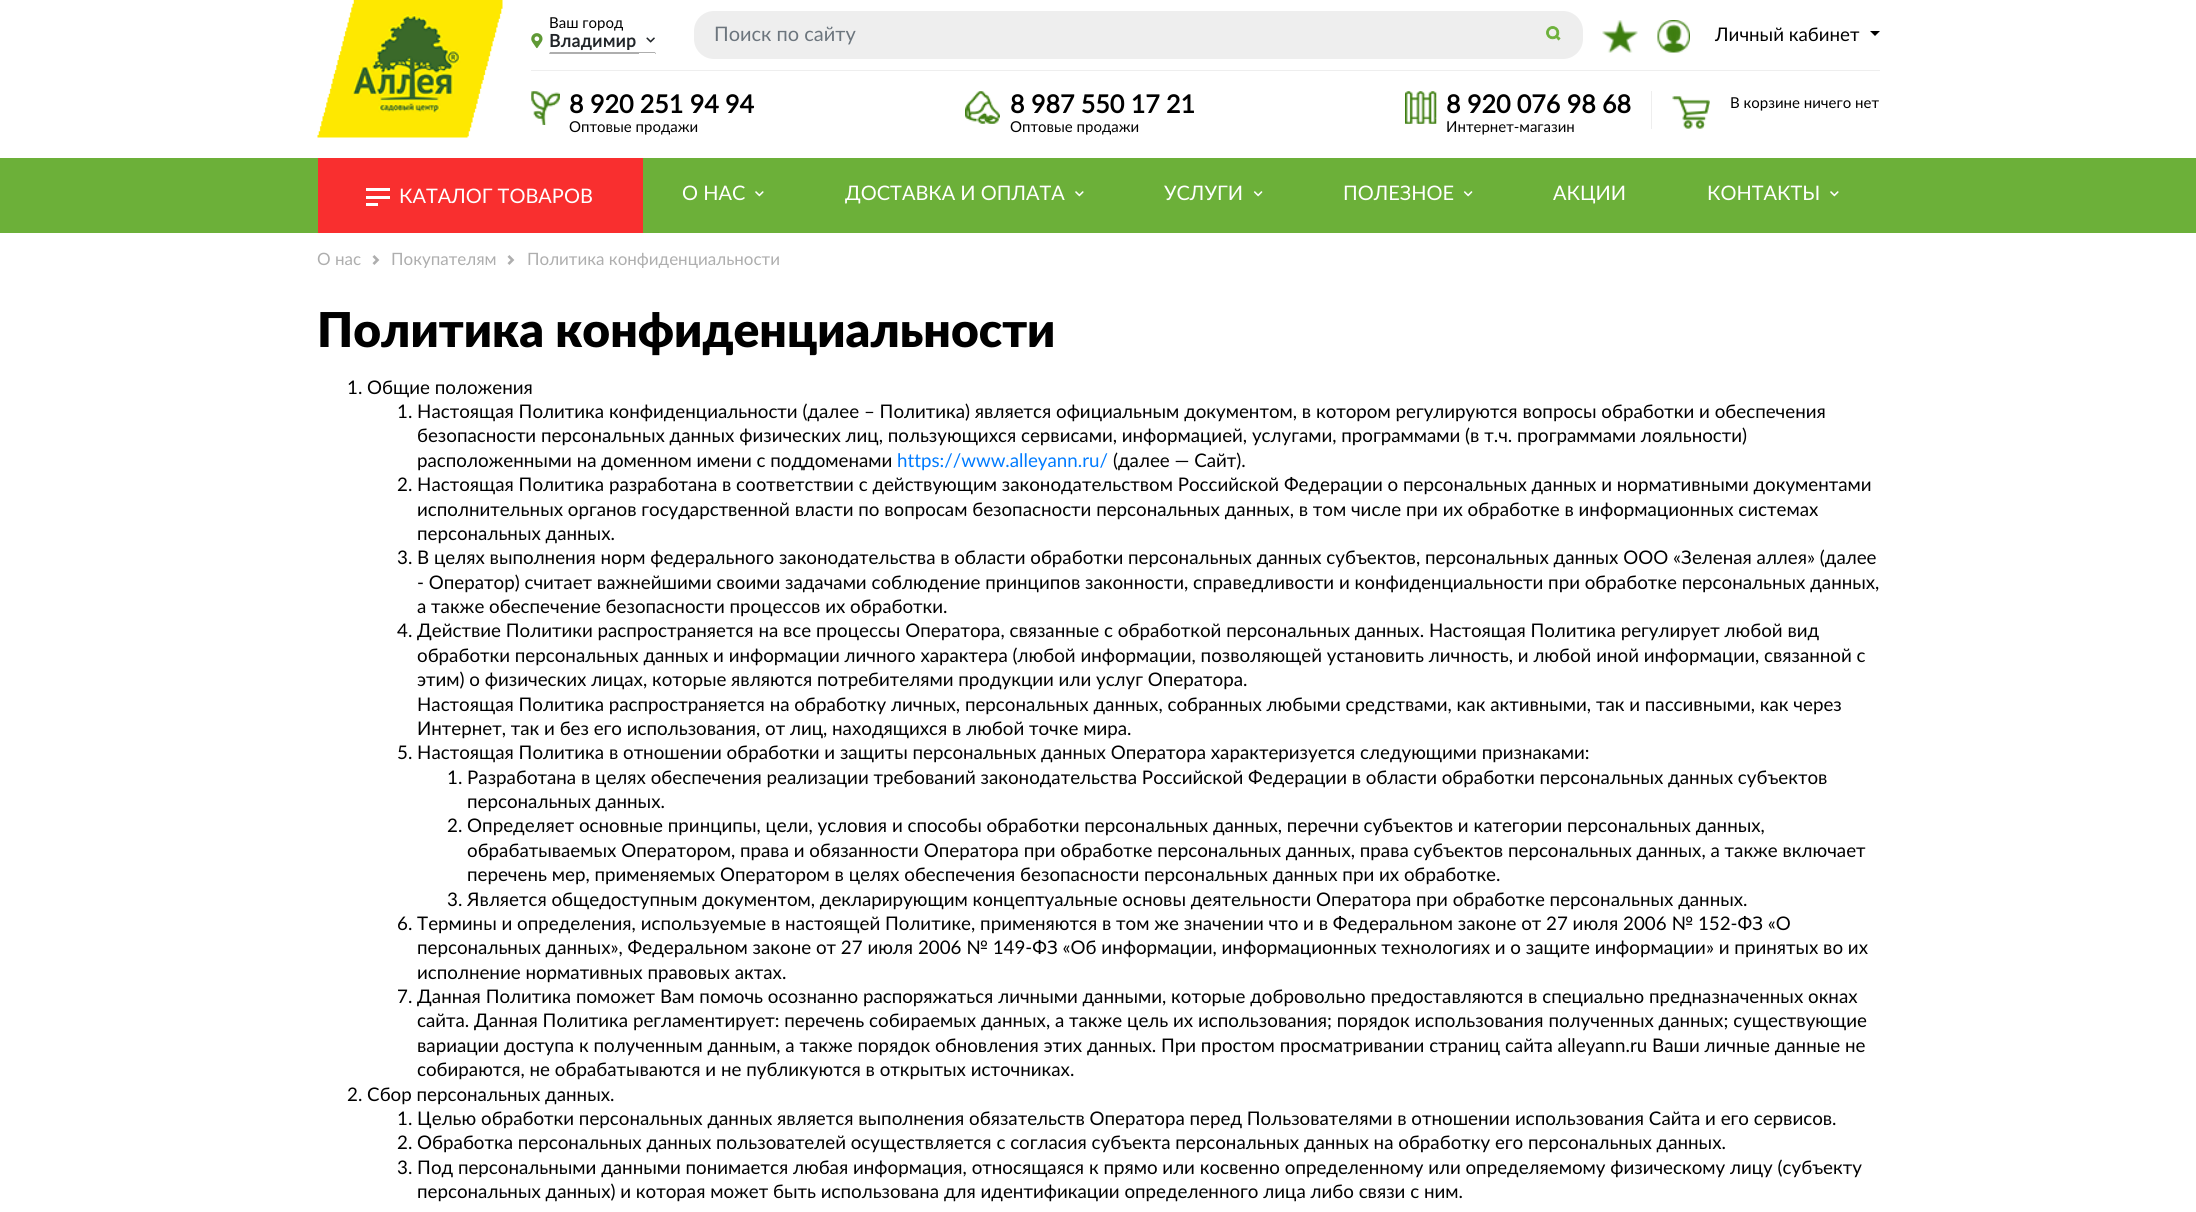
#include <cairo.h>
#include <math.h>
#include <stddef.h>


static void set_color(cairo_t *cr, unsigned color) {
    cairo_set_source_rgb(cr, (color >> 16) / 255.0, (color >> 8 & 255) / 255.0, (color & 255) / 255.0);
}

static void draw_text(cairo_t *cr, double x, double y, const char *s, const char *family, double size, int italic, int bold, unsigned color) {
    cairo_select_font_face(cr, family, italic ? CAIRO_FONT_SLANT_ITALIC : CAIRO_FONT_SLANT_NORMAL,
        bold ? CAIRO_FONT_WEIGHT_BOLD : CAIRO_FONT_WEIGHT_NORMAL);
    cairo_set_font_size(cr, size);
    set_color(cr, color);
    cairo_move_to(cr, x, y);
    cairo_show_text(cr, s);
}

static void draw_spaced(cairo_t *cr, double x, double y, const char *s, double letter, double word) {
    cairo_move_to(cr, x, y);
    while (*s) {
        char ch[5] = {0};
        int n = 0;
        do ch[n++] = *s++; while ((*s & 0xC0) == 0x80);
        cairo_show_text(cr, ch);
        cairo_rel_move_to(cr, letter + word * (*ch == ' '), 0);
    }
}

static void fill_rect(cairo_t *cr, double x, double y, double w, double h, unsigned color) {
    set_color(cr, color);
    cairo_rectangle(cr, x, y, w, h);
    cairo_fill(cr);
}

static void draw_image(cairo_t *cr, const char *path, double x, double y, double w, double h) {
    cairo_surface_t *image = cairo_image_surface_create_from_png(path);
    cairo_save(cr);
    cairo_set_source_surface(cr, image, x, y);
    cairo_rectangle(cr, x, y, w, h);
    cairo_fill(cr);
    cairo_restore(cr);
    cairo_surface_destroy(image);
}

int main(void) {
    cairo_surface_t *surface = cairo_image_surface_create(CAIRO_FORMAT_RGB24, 2196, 1212);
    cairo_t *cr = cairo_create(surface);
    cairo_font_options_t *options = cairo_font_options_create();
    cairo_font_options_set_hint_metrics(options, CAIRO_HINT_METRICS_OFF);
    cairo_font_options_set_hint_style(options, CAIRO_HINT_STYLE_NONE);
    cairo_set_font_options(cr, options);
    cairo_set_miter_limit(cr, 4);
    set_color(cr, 0xFFFFFF);
    cairo_paint(cr);
    draw_image(cr, "assets/img1.png", 317, 0, 186, 138);
    fill_rect(cr, 531, 70, 1349, 1, 0xEEEEEE);
    draw_text(cr, 549, 28, "Ваш город", "Lato", 15, 0, 0, 0x000000);
    draw_image(cr, "assets/img2.png", 531, 33, 12, 16);
    set_color(cr, 0xAEAEAE);
    cairo_new_path(cr);
    cairo_move_to(cr, 656, 54);
    cairo_line_to(cr, 549, 54);
    cairo_line_to(cr, 550, 52);
    cairo_line_to(cr, 655, 52);
    cairo_close_path(cr);
    cairo_fill(cr);
    cairo_select_font_face(cr, "Lato", CAIRO_FONT_SLANT_NORMAL, CAIRO_FONT_WEIGHT_BOLD);
    cairo_set_font_size(cr, 17.5);
    set_color(cr, 0x212529);
    draw_spaced(cr, 549, 47, "Владимир", 0.5, 0);
    draw_image(cr, "assets/img3.png", 646, 37, 9, 6);
    fill_rect(cr, 639, 53, 16, 1, 0xFFFFFF);
    set_color(cr, 0xEEEEEE);
    cairo_new_path(cr);
    cairo_move_to(cr, 714, 11);
    cairo_line_to(cr, 1528, 11);
    cairo_line_to(cr, 1528, 59);
    cairo_line_to(cr, 714, 59);
    cairo_curve_to(cr, 703, 59, 694, 50, 694, 39);
    cairo_line_to(cr, 694, 31);
    cairo_curve_to(cr, 694, 20, 703, 11, 714, 11);
    cairo_close_path(cr);
    cairo_fill(cr);
    draw_text(cr, 714, 41, "Поиск по сайту", "Lato", 20, 0, 0, 0x6C757D);
    set_color(cr, 0xEEEEEE);
    cairo_new_path(cr);
    cairo_move_to(cr, 1526, 11);
    cairo_line_to(cr, 1563, 11);
    cairo_curve_to(cr, 1574, 11, 1583, 20, 1583, 31);
    cairo_line_to(cr, 1583, 39);
    cairo_curve_to(cr, 1583, 50, 1574, 59, 1563, 59);
    cairo_line_to(cr, 1526, 59);
    cairo_close_path(cr);
    cairo_fill(cr);
    draw_image(cr, "assets/img4.png", 1546, 26, 15, 15);
    draw_image(cr, "assets/img5.png", 1602, 20, 36, 33);
    draw_image(cr, "assets/img6.png", 1657, 20, 33, 33);
    draw_text(cr, 1715, 41, "Личный кабинет", "Lato", 18.75, 0, 0, 0x000000);
    cairo_new_path(cr);
    cairo_move_to(cr, 1870, 31);
    cairo_line_to(cr, 1880, 31);
    cairo_line_to(cr, 1875, 36);
    cairo_close_path(cr);
    cairo_fill(cr);
    draw_image(cr, "assets/img7.png", 531, 91, 29, 34);
    draw_text(cr, 569, 113, "8 920 251 94 94", "Lato", 25, 0, 1, 0x000000);
    draw_text(cr, 569, 132, "Оптовые продажи", "Lato", 15, 0, 0, 0x000000);
    draw_image(cr, "assets/img8.png", 965, 91, 35, 33);
    draw_text(cr, 1010, 113, "8 987 550 17 21", "Lato", 25, 0, 1, 0x000000);
    draw_text(cr, 1010, 132, "Оптовые продажи", "Lato", 15, 0, 0, 0x000000);
    draw_image(cr, "assets/img9.png", 1405, 91, 32, 33);
    draw_text(cr, 1446, 113, "8 920 076 98 68", "Lato", 25, 0, 1, 0x000000);
    draw_text(cr, 1446, 132, "Интернет-магазин", "Lato", 15, 0, 0, 0x000000);
    fill_rect(cr, 1651, 91, 1, 38, 0xEEEEEE);
    draw_image(cr, "assets/img10.png", 1672, 96, 38, 33);
    draw_text(cr, 1730, 108, "В корзине ничего нет", "Lato", 15, 0, 0, 0x000000);
    fill_rect(cr, 0, 158, 2196, 75, 0x6CB039);
    fill_rect(cr, 318, 158, 325, 75, 0xF92F2F);
    draw_image(cr, "assets/img11.png", 366, 188, 24, 18);
    draw_text(cr, 399, 203, "КАТАЛОГ ТОВАРОВ", "Lato", 20, 0, 0, 0xFFFFFF);
    draw_text(cr, 682, 200, "О НАС", "Lato", 20, 0, 0, 0xFFFFFF);
    draw_image(cr, "assets/img12.png", 755, 191, 9, 6);
    draw_text(cr, 845, 200, "ДОСТАВКА И ОПЛАТА", "Lato", 20, 0, 0, 0xFFFFFF);
    draw_image(cr, "assets/img12.png", 1075, 191, 9, 6);
    draw_text(cr, 1164, 200, "УСЛУГИ", "Lato", 20, 0, 0, 0xFFFFFF);
    draw_image(cr, "assets/img13.png", 1253, 191, 10, 6);
    draw_text(cr, 1343, 200, "ПОЛЕЗНОЕ", "Lato", 20, 0, 0, 0xFFFFFF);
    draw_image(cr, "assets/img13.png", 1463, 191, 10, 6);
    draw_text(cr, 1553, 200, "АКЦИИ", "Lato", 20, 0, 0, 0xFFFFFF);
    draw_text(cr, 1707, 200, "КОНТАКТЫ", "Lato", 20, 0, 0, 0xFFFFFF);
    draw_image(cr, "assets/img12.png", 1830, 191, 9, 6);
    draw_text(cr, 317, 265, "О нас", "Lato", 17, 0, 0, 0xAEAEAE);
    draw_image(cr, "assets/img14.png", 372, 255, 8, 10);
    draw_text(cr, 391, 265, "Покупателям", "Lato", 17, 0, 0, 0xAEAEAE);
    draw_image(cr, "assets/img14.png", 507, 255, 8, 10);
    draw_text(cr, 527, 265, "Политика конфиденциальности", "Lato", 17, 0, 0, 0xAEAEAE);
    draw_text(cr, 317, 347, "Политика конфиденциальности", "Lato Black", 48, 0, 0, 0x000000);
    draw_text(cr, 347, 394, "1. Общие положения", "Lato", 18.75, 0, 0, 0x000000);
    draw_text(cr, 397, 418, "1. Настоящая Политика конфиденциальности (далее – Политика) является официальным документом, в котором регулируются вопросы обработки и обеспечения", "Lato", 18.75, 0, 0, 0x000000);
    draw_text(cr, 417, 442, "безопасности персональных данных физических лиц, пользующихся сервисами, информацией, услугами, программами (в т.ч. программами лояльности)", "Lato", 18.75, 0, 0, 0x000000);
    draw_text(cr, 417, 467, "расположенными на доменном имени с поддоменами", "Lato", 18.75, 0, 0, 0x000000);
    draw_text(cr, 897, 467, "https://www.alleyann.ru/", "Lato", 18.75, 0, 0, 0x007BFF);
    draw_text(cr, 1113, 467, "(далее — Сайт).", "Lato", 18.75, 0, 0, 0x000000);
    draw_text(cr, 397, 491, "2. Настоящая Политика разработана в соответствии с действующим законодательством Российской Федерации о персональных данных и нормативными документами", "Lato", 18.75, 0, 0, 0x000000);
    draw_text(cr, 417, 516, "исполнительных органов государственной власти по вопросам безопасности персональных данных, в том числе при их обработке в информационных системах", "Lato", 18.75, 0, 0, 0x000000);
    draw_text(cr, 417, 540, "персональных данных.", "Lato", 18.75, 0, 0, 0x000000);
    draw_text(cr, 397, 564, "3. В целях выполнения норм федерального законодательства в области обработки персональных данных субъектов, персональных данных ООО «Зеленая аллея» (далее", "Lato", 18.75, 0, 0, 0x000000);
    draw_text(cr, 417, 589, "- Оператор) считает важнейшими своими задачами соблюдение принципов законности, справедливости и конфиденциальности при обработке персональных данных,", "Lato", 18.75, 0, 0, 0x000000);
    draw_text(cr, 417, 613, "а также обеспечение безопасности процессов их обработки.", "Lato", 18.75, 0, 0, 0x000000);
    draw_text(cr, 397, 637, "4. Действие Политики распространяется на все процессы Оператора, связанные с обработкой персональных данных. Настоящая Политика регулирует любой вид", "Lato", 18.75, 0, 0, 0x000000);
    draw_text(cr, 417, 662, "обработки персональных данных и информации личного характера (любой информации, позволяющей установить личность, и любой иной информации, связанной с", "Lato", 18.75, 0, 0, 0x000000);
    draw_text(cr, 417, 686, "этим) о физических лицах, которые являются потребителями продукции или услуг Оператора.", "Lato", 18.75, 0, 0, 0x000000);
    draw_text(cr, 417, 711, "Настоящая Политика распространяется на обработку личных, персональных данных, собранных любыми средствами, как активными, так и пассивными, как через", "Lato", 18.75, 0, 0, 0x000000);
    draw_text(cr, 417, 735, "Интернет, так и без его использования, от лиц, находящихся в любой точке мира.", "Lato", 18.75, 0, 0, 0x000000);
    draw_text(cr, 397, 759, "5. Настоящая Политика в отношении обработки и защиты персональных данных Оператора характеризуется следующими признаками:", "Lato", 18.75, 0, 0, 0x000000);
    draw_text(cr, 447, 784, "1. Разработана в целях обеспечения реализации требований законодательства Российской Федерации в области обработки персональных данных субъектов", "Lato", 18.75, 0, 0, 0x000000);
    draw_text(cr, 467, 808, "персональных данных.", "Lato", 18.75, 0, 0, 0x000000);
    draw_text(cr, 447, 832, "2. Определяет основные принципы, цели, условия и способы обработки персональных данных, перечни субъектов и категории персональных данных,", "Lato", 18.75, 0, 0, 0x000000);
    draw_text(cr, 467, 857, "обрабатываемых Оператором, права и обязанности Оператора при обработке персональных данных, права субъектов персональных данных, а также включает", "Lato", 18.75, 0, 0, 0x000000);
    draw_text(cr, 467, 881, "перечень мер, применяемых Оператором в целях обеспечения безопасности персональных данных при их обработке.", "Lato", 18.75, 0, 0, 0x000000);
    draw_text(cr, 447, 906, "3. Является общедоступным документом, декларирующим концептуальные основы деятельности Оператора при обработке персональных данных.", "Lato", 18.75, 0, 0, 0x000000);
    draw_text(cr, 397, 930, "6. Термины и определения, используемые в настоящей Политике, применяются в том же значении что и в Федеральном законе от 27 июля 2006 № 152-ФЗ «О", "Lato", 18.75, 0, 0, 0x000000);
    draw_text(cr, 417, 954, "персональных данных», Федеральном законе от 27 июля 2006 № 149-ФЗ «Об информации, информационных технологиях и о защите информации» и принятых во их", "Lato", 18.75, 0, 0, 0x000000);
    draw_text(cr, 417, 979, "исполнение нормативных правовых актах.", "Lato", 18.75, 0, 0, 0x000000);
    draw_text(cr, 397, 1003, "7. Данная Политика поможет Вам помочь осознанно распоряжаться личными данными, которые добровольно предоставляются в специально предназначенных окнах", "Lato", 18.75, 0, 0, 0x000000);
    draw_text(cr, 417, 1027, "сайта. Данная Политика регламентирует: перечень собираемых данных, а также цель их использования; порядок использования полученных данных; существующие", "Lato", 18.75, 0, 0, 0x000000);
    draw_text(cr, 417, 1052, "вариации доступа к полученным данным, а также порядок обновления этих данных. При простом просматривании страниц сайта alleyann.ru Ваши личные данные не", "Lato", 18.75, 0, 0, 0x000000);
    draw_text(cr, 417, 1076, "собираются, не обрабатываются и не публикуются в открытых источниках.", "Lato", 18.75, 0, 0, 0x000000);
    draw_text(cr, 347, 1101, "2. Сбор персональных данных.", "Lato", 18.75, 0, 0, 0x000000);
    draw_text(cr, 397, 1125, "1. Целью обработки персональных данных является выполнения обязательств Оператора перед Пользователями в отношении использования Сайта и его сервисов.", "Lato", 18.75, 0, 0, 0x000000);
    draw_text(cr, 397, 1149, "2. Обработка персональных данных пользователей осуществляется с согласия субъекта персональных данных на обработку его персональных данных.", "Lato", 18.75, 0, 0, 0x000000);
    draw_text(cr, 397, 1174, "3. Под персональными данными понимается любая информация, относящаяся к прямо или косвенно определенному или определяемому физическому лицу (субъекту", "Lato", 18.75, 0, 0, 0x000000);
    draw_text(cr, 417, 1198, "персональных данных) и которая может быть использована для идентификации определенного лица либо связи с ним.", "Lato", 18.75, 0, 0, 0x000000);
    cairo_surface_write_to_png(surface, "output.png");
    cairo_font_options_destroy(options);
    cairo_destroy(cr);
    cairo_surface_destroy(surface);
    return 0;
}
